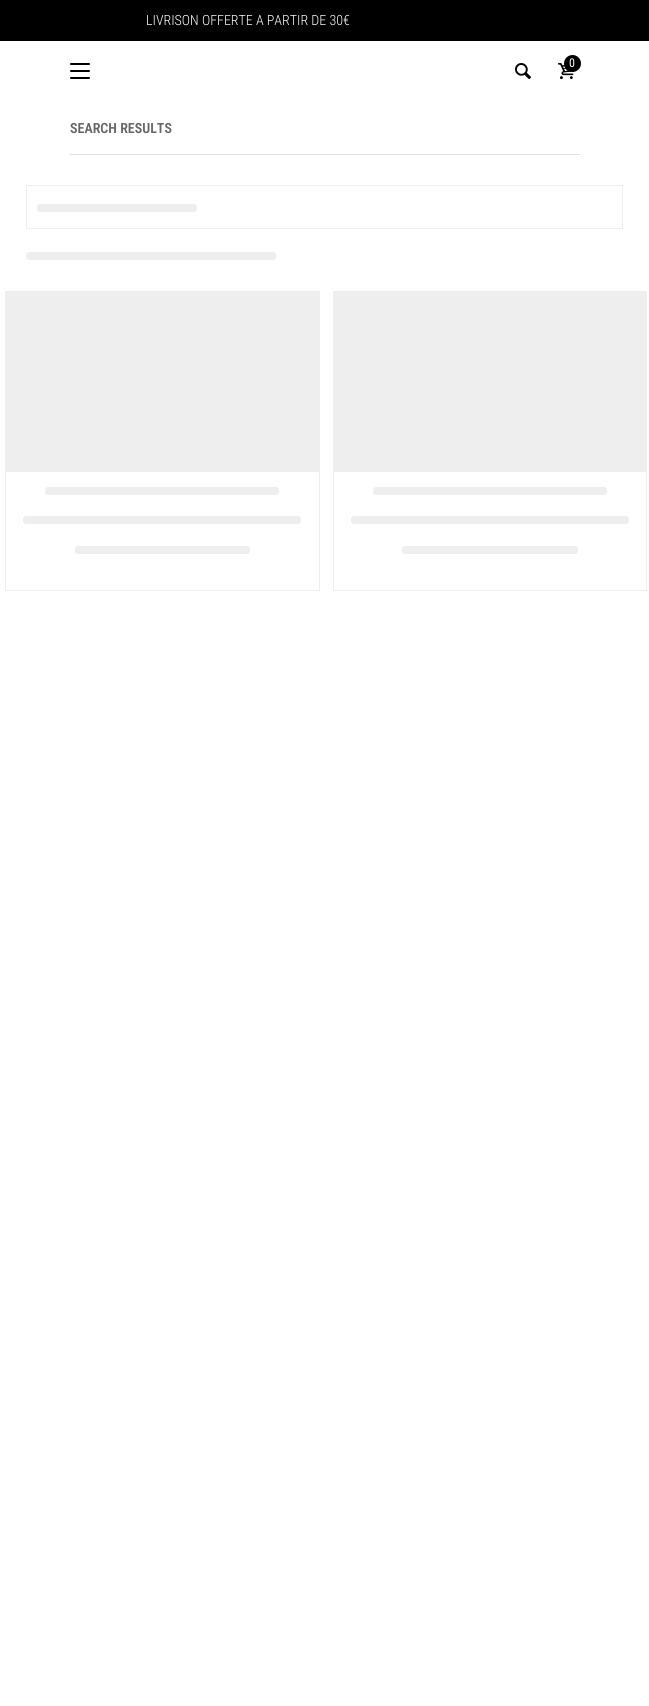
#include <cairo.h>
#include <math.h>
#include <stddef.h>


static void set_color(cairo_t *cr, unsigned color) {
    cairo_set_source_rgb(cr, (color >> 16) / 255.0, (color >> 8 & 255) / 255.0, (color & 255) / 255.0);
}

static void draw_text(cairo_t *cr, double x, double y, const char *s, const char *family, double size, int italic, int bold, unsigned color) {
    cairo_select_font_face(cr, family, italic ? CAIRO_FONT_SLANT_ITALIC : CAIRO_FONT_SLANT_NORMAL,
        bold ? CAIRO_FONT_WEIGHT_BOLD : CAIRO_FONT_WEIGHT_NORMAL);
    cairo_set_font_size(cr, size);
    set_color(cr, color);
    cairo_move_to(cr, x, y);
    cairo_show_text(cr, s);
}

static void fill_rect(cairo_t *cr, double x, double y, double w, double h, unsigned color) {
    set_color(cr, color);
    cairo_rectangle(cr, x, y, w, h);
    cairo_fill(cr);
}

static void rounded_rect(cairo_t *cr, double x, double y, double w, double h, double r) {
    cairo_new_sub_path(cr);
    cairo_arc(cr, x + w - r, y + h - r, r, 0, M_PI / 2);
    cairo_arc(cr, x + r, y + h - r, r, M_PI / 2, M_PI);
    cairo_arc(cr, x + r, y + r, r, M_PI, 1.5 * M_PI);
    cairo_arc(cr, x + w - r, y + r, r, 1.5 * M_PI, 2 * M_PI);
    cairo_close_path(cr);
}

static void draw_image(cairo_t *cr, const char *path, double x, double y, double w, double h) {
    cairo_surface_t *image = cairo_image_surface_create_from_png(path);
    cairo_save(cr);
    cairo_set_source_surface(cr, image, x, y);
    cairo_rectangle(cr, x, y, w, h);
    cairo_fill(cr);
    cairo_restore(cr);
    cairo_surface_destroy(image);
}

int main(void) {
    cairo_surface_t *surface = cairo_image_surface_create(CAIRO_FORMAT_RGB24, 649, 1706);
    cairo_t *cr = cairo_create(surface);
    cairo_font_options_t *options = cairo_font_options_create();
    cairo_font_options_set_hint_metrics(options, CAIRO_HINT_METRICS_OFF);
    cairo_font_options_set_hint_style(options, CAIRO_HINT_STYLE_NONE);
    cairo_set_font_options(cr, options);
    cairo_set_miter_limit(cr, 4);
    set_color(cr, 0xFFFFFF);
    cairo_paint(cr);
    fill_rect(cr, 0, 0, 649, 41, 0x000000);
    draw_text(cr, 146, 25, "LIVRISON OFFERTE A PARTIR DE 30€", "Roboto Condensed Light", 14, 0, 0, 0xFFFFFF);
    set_color(cr, 0x000000);
    rounded_rect(cr, 70, 63, 20, 2, 1);
    cairo_fill(cr);
    rounded_rect(cr, 70, 70, 20, 2, 1);
    cairo_fill(cr);
    rounded_rect(cr, 70, 77, 20, 2, 1);
    cairo_fill(cr);
    draw_image(cr, "assets/img1.png", 515, 63, 16, 16);
    draw_image(cr, "assets/img2.png", 558, 63, 16, 17);
    cairo_arc(cr, 572.5, 63.5, 8.5, 0, 2 * M_PI);
    cairo_fill(cr);
    draw_text(cr, 569, 67, "0", "Roboto Condensed", 12, 0, 0, 0xFFFFFF);
    draw_text(cr, 70, 133, "SEARCH RESULTS", "Roboto Condensed SemiBold", 14, 0, 0, 0x646565);
    fill_rect(cr, 70, 154, 510, 1, 0xE1E1E1);
    cairo_rectangle(cr, 26.5, 185.5, 596, 43);
    set_color(cr, 0xEEEEEE);
    cairo_set_line_width(cr, 1);
    cairo_stroke(cr);
    rounded_rect(cr, 37, 204, 160, 8, 3);
    cairo_fill(cr);
    rounded_rect(cr, 26, 252, 250, 8, 3);
    cairo_fill(cr);
    cairo_rectangle(cr, 5.5, 291.5, 314, 299);
    cairo_stroke(cr);
    fill_rect(cr, 6, 292, 313, 180, 0xEEEEEE);
    rounded_rect(cr, 45, 487, 234, 8, 3);
    cairo_fill(cr);
    rounded_rect(cr, 23, 516, 278, 8, 3);
    cairo_fill(cr);
    rounded_rect(cr, 75, 546, 175, 8, 3);
    cairo_fill(cr);
    cairo_rectangle(cr, 333.5, 291.5, 313, 299);
    cairo_stroke(cr);
    fill_rect(cr, 334, 292, 312, 180, 0xEEEEEE);
    rounded_rect(cr, 373, 487, 234, 8, 3);
    cairo_fill(cr);
    rounded_rect(cr, 351, 516, 278, 8, 3);
    cairo_fill(cr);
    rounded_rect(cr, 402, 546, 176, 8, 3);
    cairo_fill(cr);
    cairo_surface_write_to_png(surface, "output.png");
    cairo_font_options_destroy(options);
    cairo_destroy(cr);
    cairo_surface_destroy(surface);
    return 0;
}
